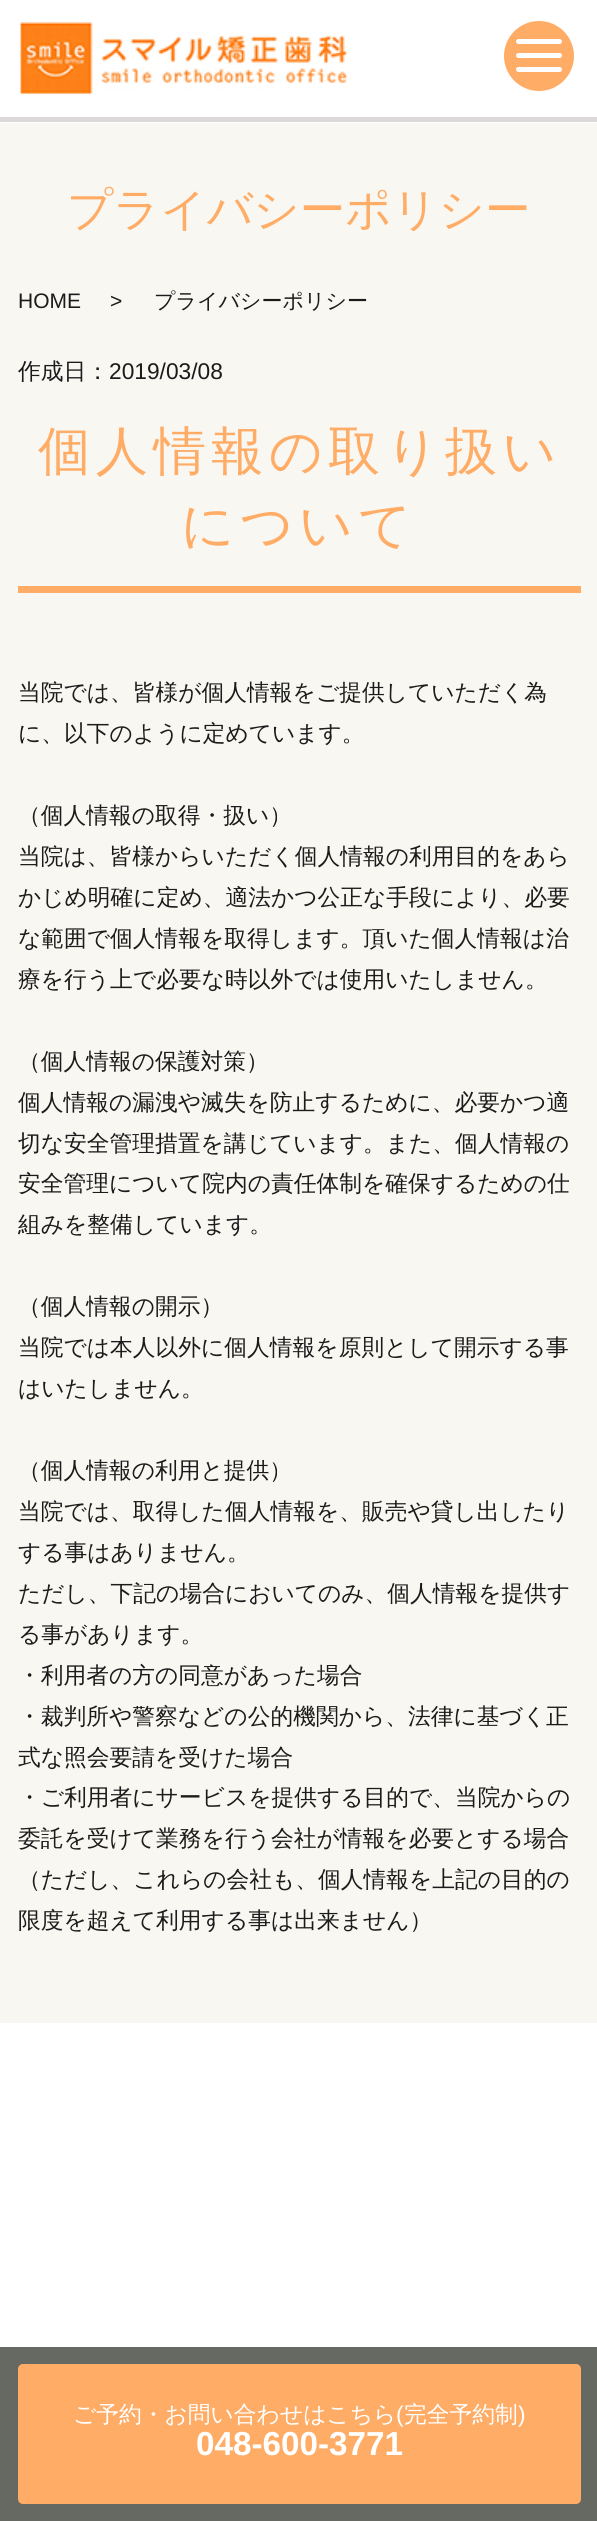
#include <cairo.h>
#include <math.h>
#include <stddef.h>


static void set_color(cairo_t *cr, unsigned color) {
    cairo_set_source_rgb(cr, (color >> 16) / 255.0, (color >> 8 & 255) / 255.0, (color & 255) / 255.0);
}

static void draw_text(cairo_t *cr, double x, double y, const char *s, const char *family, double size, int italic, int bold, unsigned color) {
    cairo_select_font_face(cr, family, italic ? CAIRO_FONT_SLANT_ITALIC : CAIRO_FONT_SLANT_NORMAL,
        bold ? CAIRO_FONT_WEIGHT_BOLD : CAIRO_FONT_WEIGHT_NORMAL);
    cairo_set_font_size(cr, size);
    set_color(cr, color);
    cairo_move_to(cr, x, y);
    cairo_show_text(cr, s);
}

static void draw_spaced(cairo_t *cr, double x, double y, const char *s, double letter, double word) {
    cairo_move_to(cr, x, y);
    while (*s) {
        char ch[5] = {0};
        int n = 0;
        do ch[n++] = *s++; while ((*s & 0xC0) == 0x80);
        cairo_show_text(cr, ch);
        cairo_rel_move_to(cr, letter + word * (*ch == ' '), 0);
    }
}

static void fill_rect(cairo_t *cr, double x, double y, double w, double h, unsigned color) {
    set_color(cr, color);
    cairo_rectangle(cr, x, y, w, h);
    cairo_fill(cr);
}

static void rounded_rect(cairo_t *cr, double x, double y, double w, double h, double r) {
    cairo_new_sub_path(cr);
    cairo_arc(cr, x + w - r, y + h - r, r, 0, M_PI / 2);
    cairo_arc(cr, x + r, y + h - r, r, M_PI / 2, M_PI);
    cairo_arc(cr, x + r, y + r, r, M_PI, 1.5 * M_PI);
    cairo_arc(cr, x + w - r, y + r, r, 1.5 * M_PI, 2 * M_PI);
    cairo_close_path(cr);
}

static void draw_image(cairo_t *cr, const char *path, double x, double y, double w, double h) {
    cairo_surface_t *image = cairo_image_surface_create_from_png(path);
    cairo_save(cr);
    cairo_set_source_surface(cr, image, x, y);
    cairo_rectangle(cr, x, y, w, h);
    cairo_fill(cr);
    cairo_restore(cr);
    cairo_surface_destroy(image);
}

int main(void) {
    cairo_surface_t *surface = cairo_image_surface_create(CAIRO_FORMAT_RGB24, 597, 2521);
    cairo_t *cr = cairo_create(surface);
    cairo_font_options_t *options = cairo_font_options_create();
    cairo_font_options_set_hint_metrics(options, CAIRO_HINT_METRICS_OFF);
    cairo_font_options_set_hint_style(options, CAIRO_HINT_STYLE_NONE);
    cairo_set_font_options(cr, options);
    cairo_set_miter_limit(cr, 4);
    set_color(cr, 0xF8F7F2);
    cairo_paint(cr);
    fill_rect(cr, 0, 0, 597, 123, 0xFFFFFF);
    fill_rect(cr, 0, 117, 597, 5, 0xDED9D9);
    draw_image(cr, "assets/img1.png", 19, 21, 329, 74);
    set_color(cr, 0xFFAC66);
    cairo_arc(cr, 539, 56, 35, 0, 2 * M_PI);
    cairo_fill(cr);
    set_color(cr, 0xFFFFFF);
    rounded_rect(cr, 516, 39, 46, 5, 2.5);
    cairo_fill(cr);
    rounded_rect(cr, 516, 53, 46, 5, 2.5);
    cairo_fill(cr);
    rounded_rect(cr, 516, 67, 46, 5, 2.5);
    cairo_fill(cr);
    draw_text(cr, 67, 225, "プライバシーポリシー", "WenQuanYi Zen Hei Medium", 45.5, 0, 0, 0xFFAC66);
    draw_text(cr, 18, 308, "HOME", "Liberation Sans", 21, 0, 0, 0x1B1B1B);
    draw_text(cr, 110, 308, ">", "Liberation Sans", 21, 0, 0, 0x1B1B1B);
    draw_text(cr, 154, 308, "プライバシーポリシー", "WenQuanYi Zen Hei Medium", 21, 0, 0, 0x1B1B1B);
    draw_text(cr, 18, 379, "作成日：", "WenQuanYi Zen Hei Medium", 22.75, 0, 0, 0x1B1B1B);
    draw_text(cr, 109, 379, "2019/03/08", "Liberation Sans", 22.75, 0, 0, 0x1B1B1B);
    cairo_select_font_face(cr, "WenQuanYi Zen Hei Medium", CAIRO_FONT_SLANT_NORMAL, CAIRO_FONT_WEIGHT_NORMAL);
    cairo_set_font_size(cr, 52.5);
    set_color(cr, 0xFFAC66);
    draw_spaced(cr, 38, 469, "個人情報の取り扱い", 5.25, 0);
    draw_spaced(cr, 181, 543, "について", 5.25, 0);
    fill_rect(cr, 18, 586, 563, 7, 0xFFAC66);
    draw_text(cr, 18, 700, "当院では、皆様が個人情報をご提供していただく為", "WenQuanYi Zen Hei Medium", 22.75, 0, 0, 0x1B1B1B);
    draw_text(cr, 18, 741, "に、以下のように定めています。", "WenQuanYi Zen Hei Medium", 22.75, 0, 0, 0x1B1B1B);
    draw_text(cr, 18, 823, "（個人情報の取得・扱い）", "WenQuanYi Zen Hei Medium", 22.75, 0, 0, 0x1B1B1B);
    draw_text(cr, 18, 864, "当院は、皆様からいただく個人情報の利用目的をあら", "WenQuanYi Zen Hei Medium", 22.75, 0, 0, 0x1B1B1B);
    draw_text(cr, 18, 905, "かじめ明確に定め、適法かつ公正な手段により、必要", "WenQuanYi Zen Hei Medium", 22.75, 0, 0, 0x1B1B1B);
    draw_text(cr, 18, 946, "な範囲で個人情報を取得します。頂いた個人情報は治", "WenQuanYi Zen Hei Medium", 22.75, 0, 0, 0x1B1B1B);
    draw_text(cr, 18, 987, "療を行う上で必要な時以外では使用いたしません。", "WenQuanYi Zen Hei Medium", 22.75, 0, 0, 0x1B1B1B);
    draw_text(cr, 18, 1069, "（個人情報の保護対策）", "WenQuanYi Zen Hei Medium", 22.75, 0, 0, 0x1B1B1B);
    draw_text(cr, 18, 1110, "個人情報の漏洩や滅失を防止するために、必要かつ適", "WenQuanYi Zen Hei Medium", 22.75, 0, 0, 0x1B1B1B);
    draw_text(cr, 18, 1151, "切な安全管理措置を講じています。また、個人情報の", "WenQuanYi Zen Hei Medium", 22.75, 0, 0, 0x1B1B1B);
    draw_text(cr, 18, 1191, "安全管理について院内の責任体制を確保するための仕", "WenQuanYi Zen Hei Medium", 22.75, 0, 0, 0x1B1B1B);
    cairo_save(cr);
    cairo_rectangle(cr, 18, 415, 563, 1526);
    cairo_clip(cr);
    draw_text(cr, 18, 1232, "組みを整備しています。", "WenQuanYi Zen Hei Medium", 22.75, 0, 0, 0x1B1B1B);
    cairo_restore(cr);
    draw_text(cr, 18, 1314, "（個人情報の開示）", "WenQuanYi Zen Hei Medium", 22.75, 0, 0, 0x1B1B1B);
    draw_text(cr, 18, 1355, "当院では本人以外に個人情報を原則として開示する事", "WenQuanYi Zen Hei Medium", 22.75, 0, 0, 0x1B1B1B);
    draw_text(cr, 18, 1396, "はいたしません。", "WenQuanYi Zen Hei Medium", 22.75, 0, 0, 0x1B1B1B);
    draw_text(cr, 18, 1478, "（個人情報の利用と提供）", "WenQuanYi Zen Hei Medium", 22.75, 0, 0, 0x1B1B1B);
    draw_text(cr, 18, 1519, "当院では、取得した個人情報を、販売や貸し出したり", "WenQuanYi Zen Hei Medium", 22.75, 0, 0, 0x1B1B1B);
    draw_text(cr, 18, 1560, "する事はありません。", "WenQuanYi Zen Hei Medium", 22.75, 0, 0, 0x1B1B1B);
    draw_text(cr, 18, 1601, "ただし、下記の場合においてのみ、個人情報を提供す", "WenQuanYi Zen Hei Medium", 22.75, 0, 0, 0x1B1B1B);
    draw_text(cr, 18, 1642, "る事があります。", "WenQuanYi Zen Hei Medium", 22.75, 0, 0, 0x1B1B1B);
    draw_text(cr, 18, 1683, "・利用者の方の同意があった場合", "WenQuanYi Zen Hei Medium", 22.75, 0, 0, 0x1B1B1B);
    draw_text(cr, 18, 1724, "・裁判所や警察などの公的機関から、法律に基づく正", "WenQuanYi Zen Hei Medium", 22.75, 0, 0, 0x1B1B1B);
    draw_text(cr, 18, 1765, "式な照会要請を受けた場合", "WenQuanYi Zen Hei Medium", 22.75, 0, 0, 0x1B1B1B);
    draw_text(cr, 18, 1805, "・ご利用者にサービスを提供する目的で、当院からの", "WenQuanYi Zen Hei Medium", 22.75, 0, 0, 0x1B1B1B);
    draw_text(cr, 18, 1846, "委託を受けて業務を行う会社が情報を必要とする場合", "WenQuanYi Zen Hei Medium", 22.75, 0, 0, 0x1B1B1B);
    draw_text(cr, 18, 1887, "（ただし、これらの会社も、個人情報を上記の目的の", "WenQuanYi Zen Hei Medium", 22.75, 0, 0, 0x1B1B1B);
    draw_text(cr, 18, 1928, "限度を超えて利用する事は出来ません）", "WenQuanYi Zen Hei Medium", 22.75, 0, 0, 0x1B1B1B);
    fill_rect(cr, 0, 2023, 597, 324, 0xFFFFFF);
    fill_rect(cr, 0, 2347, 597, 174, 0x656962);
    set_color(cr, 0xFFAC66);
    rounded_rect(cr, 18, 2364, 563, 140, 5);
    cairo_fill(cr);
    draw_text(cr, 73, 2422, "ご予約・お問い合わせはこちら", "WenQuanYi Zen Hei Medium", 22.75, 0, 0, 0xFFFFFF);
    draw_text(cr, 396, 2422, "(", "Liberation Sans", 22.75, 0, 0, 0xFFFFFF);
    draw_text(cr, 404, 2422, "完全予約制", "WenQuanYi Zen Hei Medium", 22.75, 0, 0, 0xFFFFFF);
    draw_text(cr, 518, 2422, ")", "Liberation Sans", 22.75, 0, 0, 0xFFFFFF);
    draw_text(cr, 196, 2455, "048-600-3771", "Liberation Sans", 33.25, 0, 1, 0xFFFFFF);
    cairo_surface_write_to_png(surface, "output.png");
    cairo_font_options_destroy(options);
    cairo_destroy(cr);
    cairo_surface_destroy(surface);
    return 0;
}
